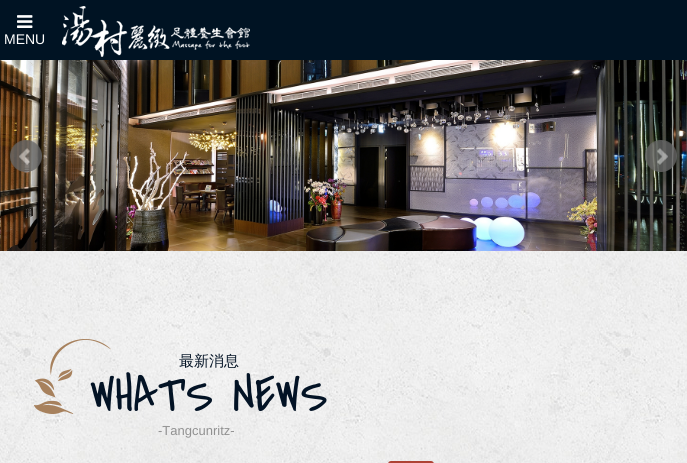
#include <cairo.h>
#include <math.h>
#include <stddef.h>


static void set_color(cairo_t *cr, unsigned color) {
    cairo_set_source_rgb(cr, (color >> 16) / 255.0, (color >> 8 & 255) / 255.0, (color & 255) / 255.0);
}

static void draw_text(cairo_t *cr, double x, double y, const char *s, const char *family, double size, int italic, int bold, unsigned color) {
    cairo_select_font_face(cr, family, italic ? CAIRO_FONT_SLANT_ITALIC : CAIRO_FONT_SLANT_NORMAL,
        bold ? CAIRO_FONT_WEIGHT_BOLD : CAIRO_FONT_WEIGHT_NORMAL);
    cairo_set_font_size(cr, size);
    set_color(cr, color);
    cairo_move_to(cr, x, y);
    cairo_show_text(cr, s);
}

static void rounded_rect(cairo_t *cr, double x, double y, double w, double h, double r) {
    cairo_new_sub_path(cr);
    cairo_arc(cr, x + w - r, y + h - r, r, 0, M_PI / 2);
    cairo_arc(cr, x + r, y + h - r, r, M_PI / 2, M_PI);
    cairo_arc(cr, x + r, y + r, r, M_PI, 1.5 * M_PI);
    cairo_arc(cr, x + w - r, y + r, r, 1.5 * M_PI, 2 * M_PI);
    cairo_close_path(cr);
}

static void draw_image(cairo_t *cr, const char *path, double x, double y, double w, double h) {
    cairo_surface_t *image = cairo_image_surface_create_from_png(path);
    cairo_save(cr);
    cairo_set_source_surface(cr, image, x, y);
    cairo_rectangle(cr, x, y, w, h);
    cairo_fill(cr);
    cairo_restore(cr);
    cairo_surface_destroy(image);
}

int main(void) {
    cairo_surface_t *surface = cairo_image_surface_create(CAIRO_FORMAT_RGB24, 687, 463);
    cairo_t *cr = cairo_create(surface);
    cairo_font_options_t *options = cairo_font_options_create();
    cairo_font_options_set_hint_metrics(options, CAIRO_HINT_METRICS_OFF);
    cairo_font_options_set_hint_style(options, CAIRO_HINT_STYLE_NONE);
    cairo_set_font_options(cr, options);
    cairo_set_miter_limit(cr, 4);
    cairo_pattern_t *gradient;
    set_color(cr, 0xFFFFFF);
    cairo_paint(cr);
    draw_image(cr, "assets/img1.png", 0, 0, 687, 60);
    cairo_set_source_rgba(cr, 0, 0.078, 0.141, 0.93);
    cairo_rectangle(cr, 0, 0, 687, 60);
    cairo_fill(cr);
    draw_image(cr, "assets/img2.png", 17, 15, 16, 13);
    draw_text(cr, 4, 44, "MENU", "Liberation Sans", 14, 0, 0, 0xFFFFFF);
    draw_image(cr, "assets/img3.png", 62, 6, 188, 51);
    draw_image(cr, "assets/img4.png", 0, 60, 687, 191);
    draw_image(cr, "assets/img5.png", 10, 140, 32, 32);
    draw_image(cr, "assets/img6.png", 645, 140, 32, 32);
    draw_image(cr, "assets/img7.png", 0, 251, 687, 212);
    draw_image(cr, "assets/img8.png", 34, 339, 77, 75);
    draw_text(cr, 179, 366, "最新消息", "WenQuanYi Zen Hei Medium", 15, 0, 0, 0x031325);
    draw_text(cr, 158, 435, "-Tangcunritz-", "Liberation Sans", 13, 0, 0, 0x919191);
    draw_text(cr, 90, 411, "WHAT'S NEWS", "Covered By Your Grace", 50, 0, 0, 0x031325);
    gradient = cairo_pattern_create_linear(411, 461, 411, 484);
    cairo_pattern_add_color_stop_rgba(gradient, 0, 0.682, 0.259, 0.2, 1);
    cairo_pattern_add_color_stop_rgba(gradient, 1, 0.769, 0.298, 0.298, 1);
    cairo_set_source(cr, gradient);
    cairo_pattern_destroy(gradient);
    rounded_rect(cr, 388, 461, 46, 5, 3);
    cairo_fill(cr);
    cairo_surface_write_to_png(surface, "output.png");
    cairo_font_options_destroy(options);
    cairo_destroy(cr);
    cairo_surface_destroy(surface);
    return 0;
}
